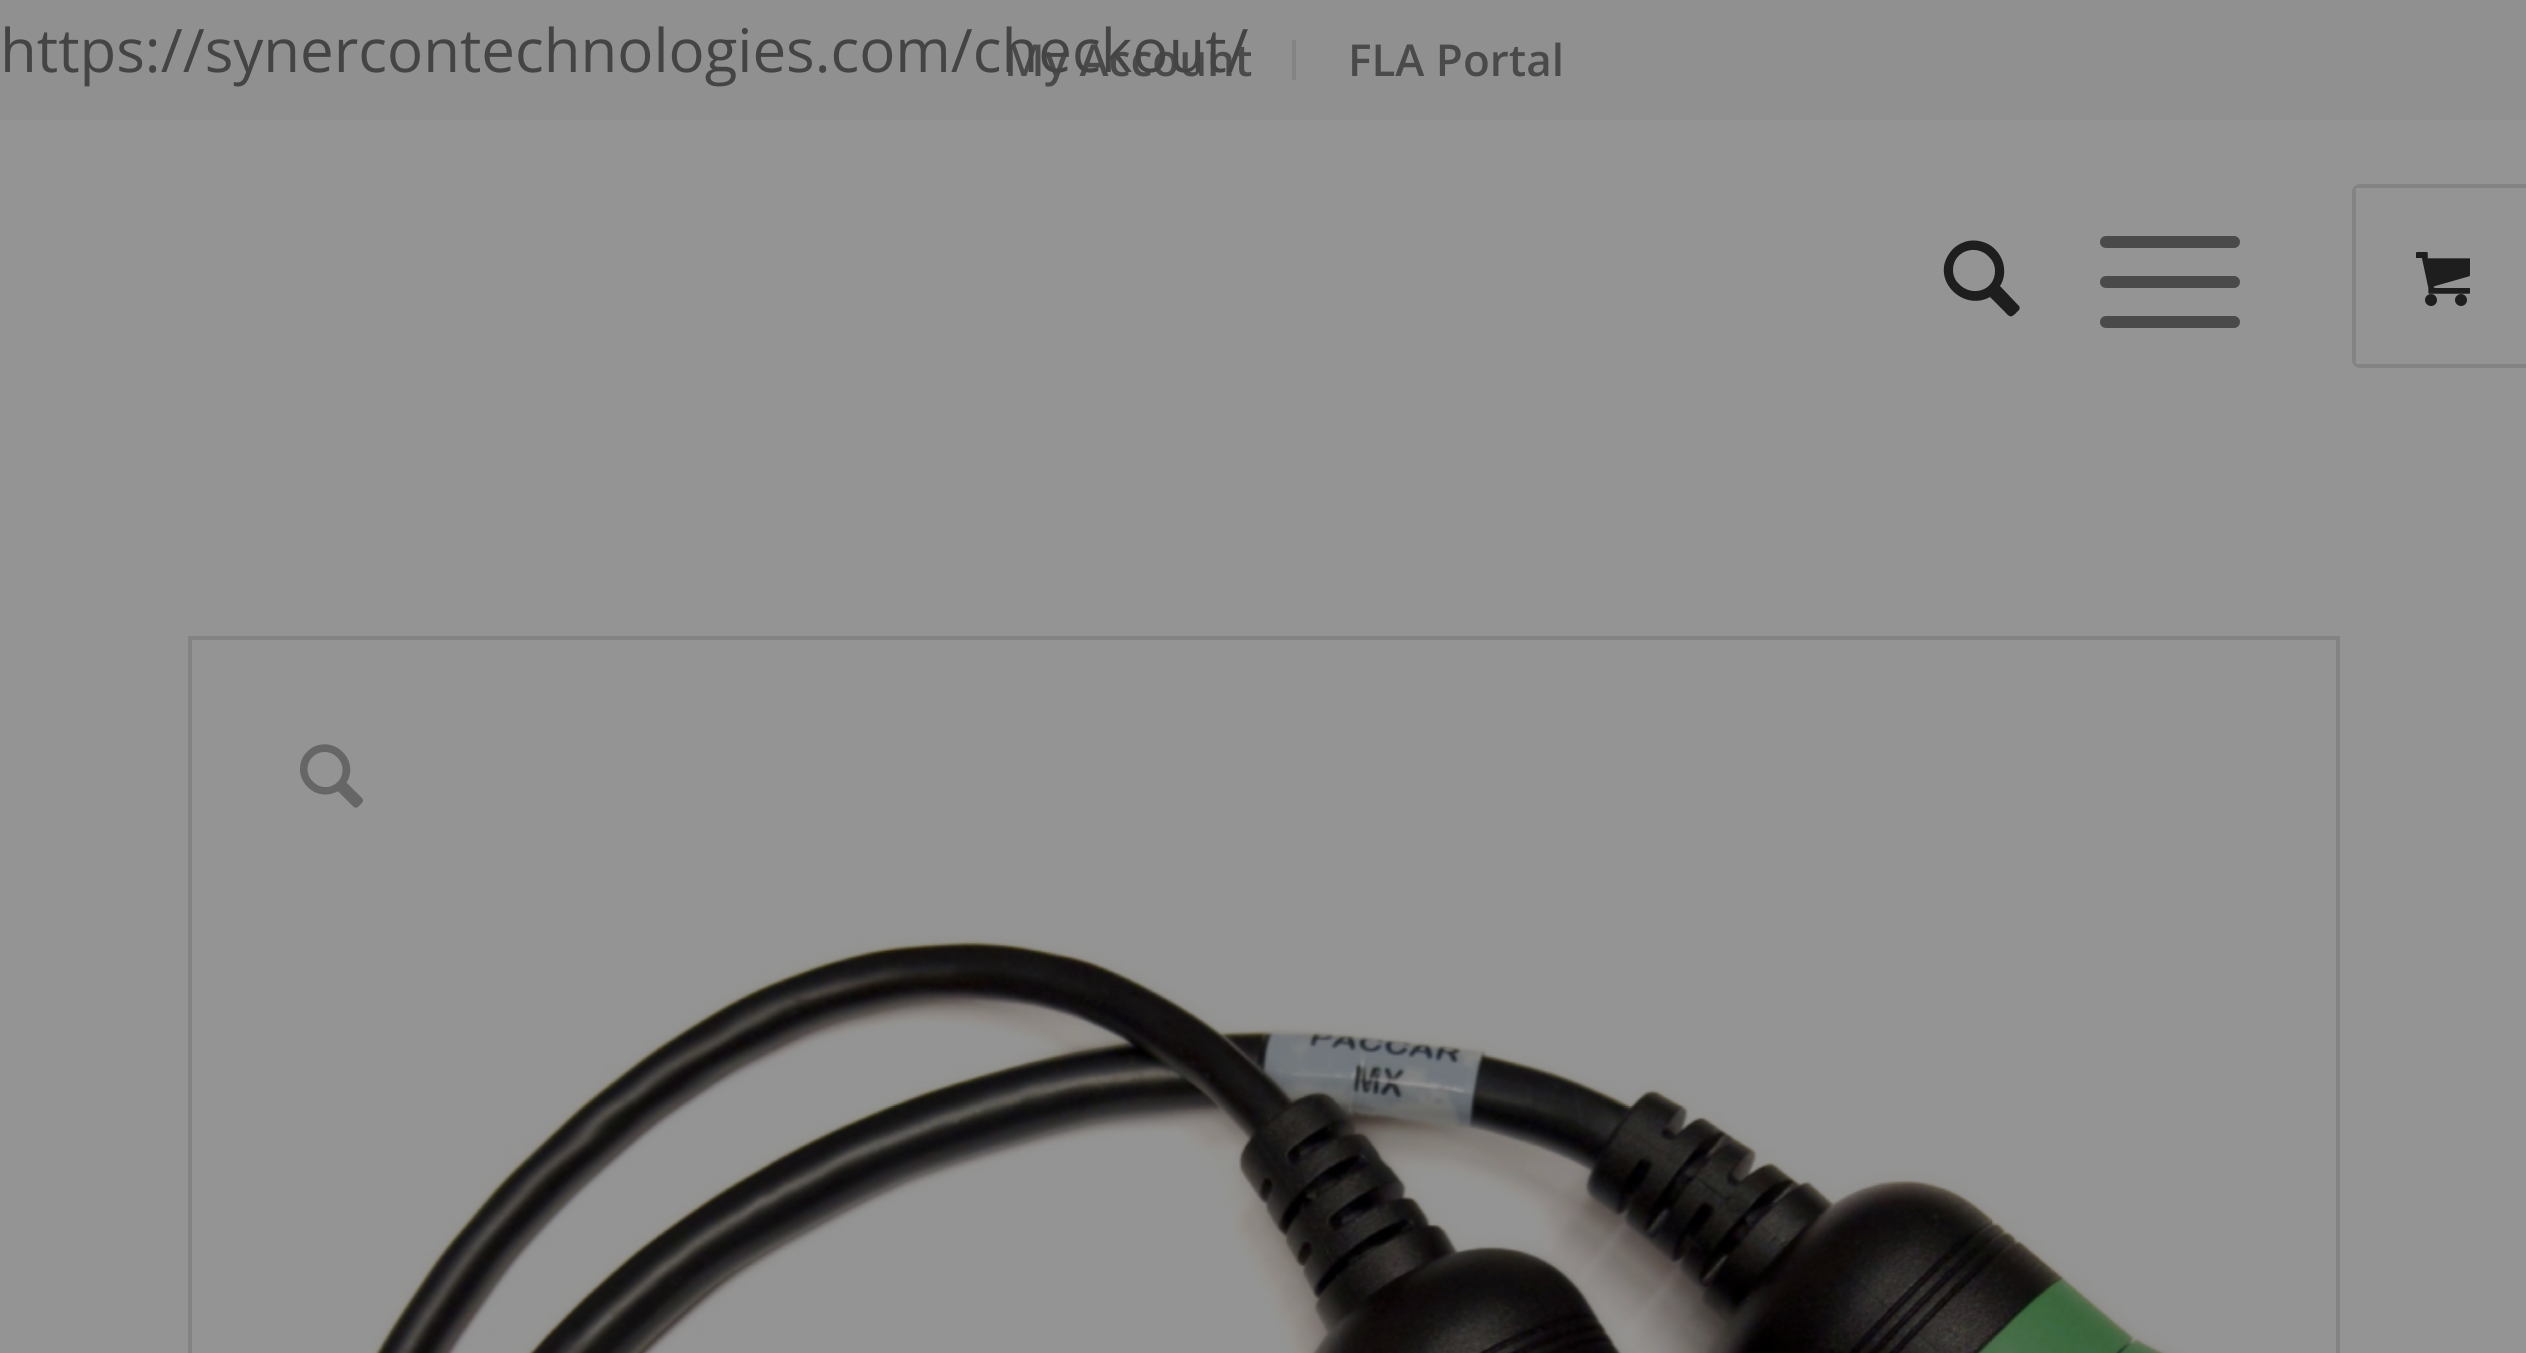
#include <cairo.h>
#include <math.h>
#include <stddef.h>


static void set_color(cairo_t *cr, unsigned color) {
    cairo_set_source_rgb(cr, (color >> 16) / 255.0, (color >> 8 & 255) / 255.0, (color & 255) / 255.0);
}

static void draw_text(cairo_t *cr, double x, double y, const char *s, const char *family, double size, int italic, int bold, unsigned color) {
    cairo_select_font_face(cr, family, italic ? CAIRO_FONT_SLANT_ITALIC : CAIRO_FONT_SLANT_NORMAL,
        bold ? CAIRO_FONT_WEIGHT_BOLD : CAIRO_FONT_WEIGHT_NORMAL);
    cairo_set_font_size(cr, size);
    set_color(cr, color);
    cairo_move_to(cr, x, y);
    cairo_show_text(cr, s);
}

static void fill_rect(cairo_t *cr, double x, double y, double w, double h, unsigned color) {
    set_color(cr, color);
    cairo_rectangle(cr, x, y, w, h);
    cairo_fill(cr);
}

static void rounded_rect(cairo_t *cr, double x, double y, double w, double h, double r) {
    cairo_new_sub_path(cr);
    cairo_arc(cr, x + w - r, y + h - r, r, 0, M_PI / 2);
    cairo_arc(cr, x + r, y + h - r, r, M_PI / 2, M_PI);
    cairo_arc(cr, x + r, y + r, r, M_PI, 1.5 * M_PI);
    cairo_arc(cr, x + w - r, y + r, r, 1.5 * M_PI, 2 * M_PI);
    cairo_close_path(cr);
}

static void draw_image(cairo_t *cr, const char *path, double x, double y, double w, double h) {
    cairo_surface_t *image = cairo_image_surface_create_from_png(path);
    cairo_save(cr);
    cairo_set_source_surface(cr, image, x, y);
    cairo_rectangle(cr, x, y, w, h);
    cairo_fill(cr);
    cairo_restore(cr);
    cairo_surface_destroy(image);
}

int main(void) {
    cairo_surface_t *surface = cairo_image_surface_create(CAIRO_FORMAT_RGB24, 2526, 1353);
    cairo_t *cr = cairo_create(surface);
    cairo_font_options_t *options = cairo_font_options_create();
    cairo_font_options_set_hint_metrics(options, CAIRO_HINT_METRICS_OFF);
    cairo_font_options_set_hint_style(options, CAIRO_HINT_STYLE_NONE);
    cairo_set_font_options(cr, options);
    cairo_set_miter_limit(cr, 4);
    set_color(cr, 0x949494);
    cairo_paint(cr);
    fill_rect(cr, 0, 0, 2526, 120, 0x909090);
    draw_text(cr, 1004, 76, "My Account", "Open Sans SemiBold", 44, 0, 0, 0x4A4A4A);
    draw_text(cr, 0, 72, "https://synercontechnologies.com/checkout/", "Open Sans", 60, 0, 0, 0x444444);
    fill_rect(cr, 1292, 40, 4, 40, 0x838383);
    draw_text(cr, 1348, 76, "FLA Portal", "Open Sans SemiBold", 44, 0, 0, 0x4A4A4A);
    set_color(cr, 0x1E1E1E);
    cairo_new_path(cr);
    cairo_move_to(cr, 2018, 305);
    cairo_curve_to(cr, 2020, 306, 2020, 309, 2019, 310);
    cairo_curve_to(cr, 2012, 317, 2011, 319, 2005, 312);
    cairo_line_to(cr, 1990, 297);
    cairo_curve_to(cr, 1963, 312, 1931, 280, 1949, 254);
    cairo_curve_to(cr, 1952, 249, 1957, 245, 1962, 243);
    cairo_curve_to(cr, 1970, 239, 1980, 240, 1988, 244);
    cairo_curve_to(cr, 2003, 252, 2009, 272, 2000, 286);
    cairo_close_path(cr);
    cairo_move_to(cr, 1953, 270);
    cairo_curve_to(cr, 1953, 275, 1955, 280, 1958, 283);
    cairo_curve_to(cr, 1971, 298, 1995, 291, 1995, 271);
    cairo_curve_to(cr, 1995, 266, 1993, 261, 1990, 258);
    cairo_curve_to(cr, 1978, 243, 1953, 250, 1953, 270);
    cairo_close_path(cr);
    cairo_fill(cr);
    set_color(cr, 0x4A4A4A);
    rounded_rect(cr, 2100, 276, 140, 12, 6);
    cairo_fill(cr);
    rounded_rect(cr, 2100, 236, 140, 12, 6);
    cairo_fill(cr);
    rounded_rect(cr, 2100, 316, 140, 12, 6);
    cairo_fill(cr);
    rounded_rect(cr, 2354, 186, 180, 180, 6);
    set_color(cr, 0x838383);
    cairo_set_line_width(cr, 4);
    cairo_stroke(cr);
    fill_rect(cr, 2356, 188, 3, 176, 0x949494);
    draw_image(cr, "assets/img1.png", 2416, 252, 54, 54);
    cairo_rectangle(cr, 190, 638, 2148, 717);
    set_color(cr, 0x838383);
    cairo_stroke(cr);
    draw_image(cr, "assets/img2.png", 371, 936, 1815, 417);
    draw_image(cr, "assets/img3.png", 300, 744, 63, 64);
    cairo_surface_write_to_png(surface, "output.png");
    cairo_font_options_destroy(options);
    cairo_destroy(cr);
    cairo_surface_destroy(surface);
    return 0;
}
